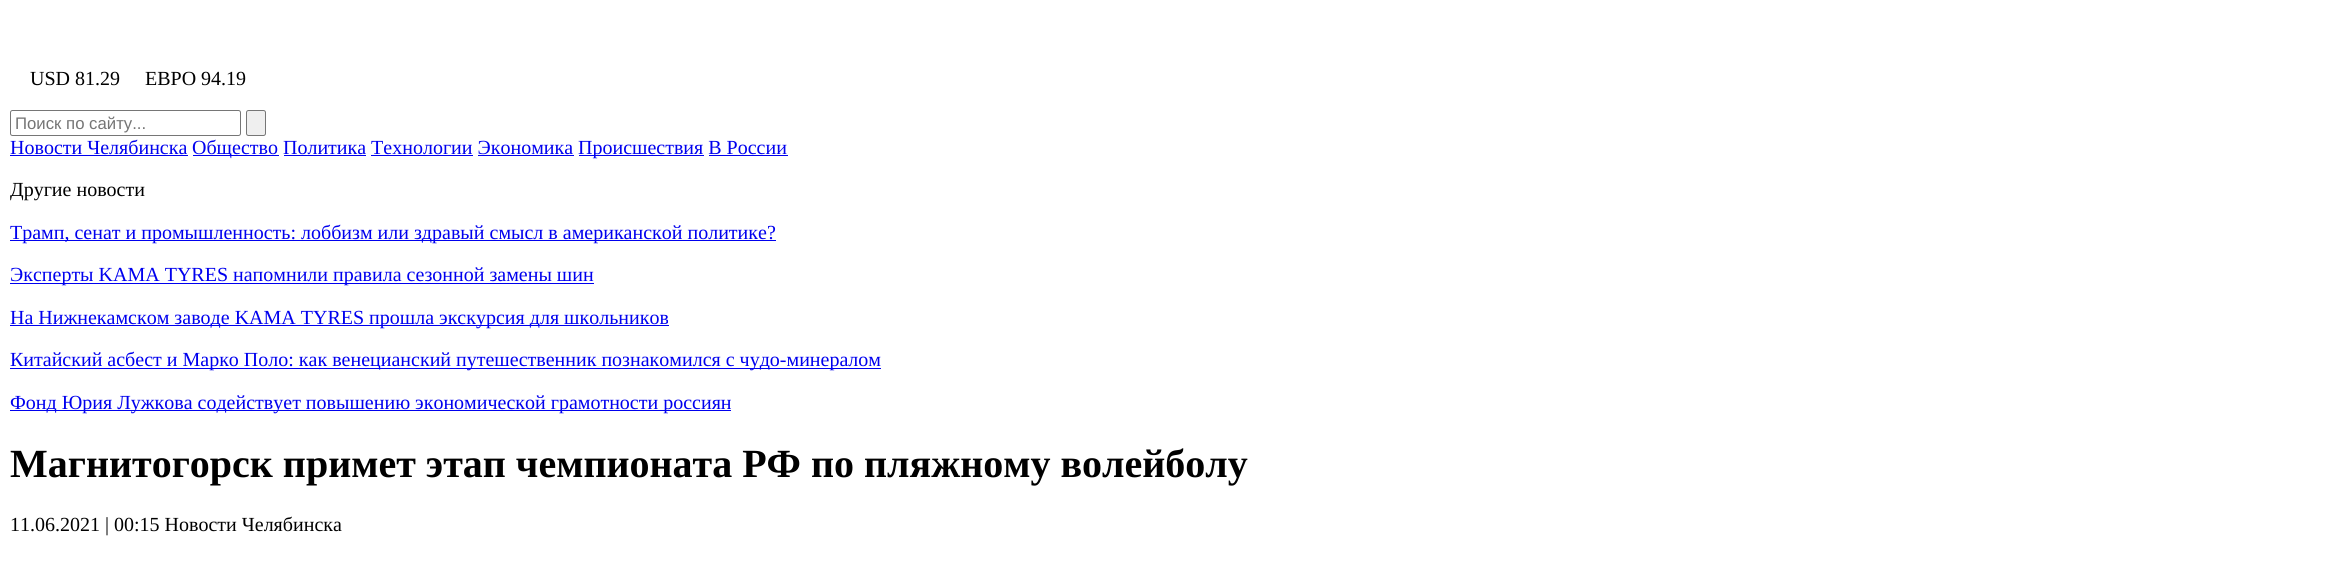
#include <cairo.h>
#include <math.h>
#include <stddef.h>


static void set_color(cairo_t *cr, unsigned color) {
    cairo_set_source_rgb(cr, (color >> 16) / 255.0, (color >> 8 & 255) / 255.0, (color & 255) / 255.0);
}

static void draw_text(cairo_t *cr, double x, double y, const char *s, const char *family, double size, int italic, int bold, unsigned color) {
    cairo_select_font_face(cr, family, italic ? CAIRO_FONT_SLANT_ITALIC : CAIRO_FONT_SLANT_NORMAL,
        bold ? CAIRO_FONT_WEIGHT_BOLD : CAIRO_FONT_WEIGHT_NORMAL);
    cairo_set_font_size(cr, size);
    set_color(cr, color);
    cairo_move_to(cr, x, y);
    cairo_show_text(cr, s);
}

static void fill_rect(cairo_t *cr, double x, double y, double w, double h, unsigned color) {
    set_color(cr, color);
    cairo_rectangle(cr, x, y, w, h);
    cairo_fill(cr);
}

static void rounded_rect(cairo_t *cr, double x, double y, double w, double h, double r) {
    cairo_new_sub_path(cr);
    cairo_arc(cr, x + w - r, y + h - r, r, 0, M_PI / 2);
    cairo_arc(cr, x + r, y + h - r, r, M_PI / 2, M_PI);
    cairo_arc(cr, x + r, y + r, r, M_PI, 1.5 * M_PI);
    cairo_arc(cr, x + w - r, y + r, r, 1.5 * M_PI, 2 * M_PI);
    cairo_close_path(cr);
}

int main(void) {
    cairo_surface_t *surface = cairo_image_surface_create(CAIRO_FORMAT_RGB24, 2334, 588);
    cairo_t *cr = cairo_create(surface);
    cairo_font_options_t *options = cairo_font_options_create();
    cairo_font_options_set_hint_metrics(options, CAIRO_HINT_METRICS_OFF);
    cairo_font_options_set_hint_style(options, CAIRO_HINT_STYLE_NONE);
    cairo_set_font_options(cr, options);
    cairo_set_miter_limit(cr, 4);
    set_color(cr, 0xFFFFFF);
    cairo_paint(cr);
    draw_text(cr, 30, 85, "USD 81.29", "Liberation Serif", 20, 0, 0, 0x000000);
    draw_text(cr, 145, 85, "ЕВРО 94.19", "Liberation Serif", 20, 0, 0, 0x000000);
    rounded_rect(cr, 10.5, 110.5, 230, 25, 2);
    set_color(cr, 0x767676);
    cairo_set_line_width(cr, 1);
    cairo_stroke(cr);
    draw_text(cr, 15, 129, "Поиск по сайту...", "Liberation Sans", 16.75, 0, 0, 0x757575);
    set_color(cr, 0xEFEFEF);
    rounded_rect(cr, 246.5, 110.5, 19, 25, 2);
    cairo_fill_preserve(cr);
    set_color(cr, 0x767676);
    cairo_stroke(cr);
    draw_text(cr, 10, 154, "Новости Челябинска", "Liberation Serif", 20, 0, 0, 0x0000EE);
    fill_rect(cr, 10, 155, 178, 1, 0x0000EE);
    fill_rect(cr, 193, 155, 86, 1, 0x0000EE);
    draw_text(cr, 192, 154, "Общество Политика Технологии Экономика", "Liberation Serif", 20, 0, 0, 0x0000EE);
    fill_rect(cr, 579, 155, 125, 1, 0x0000EE);
    draw_text(cr, 578, 154, "Происшествия В России", "Liberation Serif", 20, 0, 0, 0x0000EE);
    fill_rect(cr, 284, 155, 82, 1, 0x0000EE);
    fill_rect(cr, 371, 155, 102, 1, 0x0000EE);
    fill_rect(cr, 478, 155, 96, 1, 0x0000EE);
    fill_rect(cr, 709, 155, 79, 1, 0x0000EE);
    draw_text(cr, 10, 196, "Другие новости", "Liberation Serif", 20, 0, 0, 0x000000);
    fill_rect(cr, 10, 240, 766, 1, 0x0000EE);
    draw_text(cr, 10, 239, "Трамп, сенат и промышленность: лоббизм или здравый смысл в американской политике?", "Liberation Serif", 20, 0, 0, 0x0000EE);
    fill_rect(cr, 10, 283, 584, 1, 0x0000EE);
    draw_text(cr, 10, 281, "Эксперты KAMA TYRES напомнили правила сезонной замены шин", "Liberation Serif", 20, 0, 0, 0x0000EE);
    fill_rect(cr, 10, 325, 659, 1, 0x0000EE);
    draw_text(cr, 10, 324, "На Нижнекамском заводе KAMA TYRES прошла экскурсия для школьников", "Liberation Serif", 20, 0, 0, 0x0000EE);
    fill_rect(cr, 10, 368, 871, 1, 0x0000EE);
    draw_text(cr, 10, 366, "Китайский асбест и Марко Поло: как венецианский путешественник познакомился с чудо-минералом", "Liberation Serif", 20, 0, 0, 0x0000EE);
    fill_rect(cr, 10, 410, 721, 1, 0x0000EE);
    draw_text(cr, 10, 409, "Фонд Юрия Лужкова содействует повышению экономической грамотности россиян", "Liberation Serif", 20, 0, 0, 0x0000EE);
    draw_text(cr, 10, 477, "Магнитогорск примет этап чемпионата РФ по пляжному волейболу", "Liberation Serif", 40, 0, 1, 0x000000);
    draw_text(cr, 10, 531, "11.06.2021 | 00:15 Новости Челябинска", "Liberation Serif", 20, 0, 0, 0x000000);
    cairo_surface_write_to_png(surface, "output.png");
    cairo_font_options_destroy(options);
    cairo_destroy(cr);
    cairo_surface_destroy(surface);
    return 0;
}
